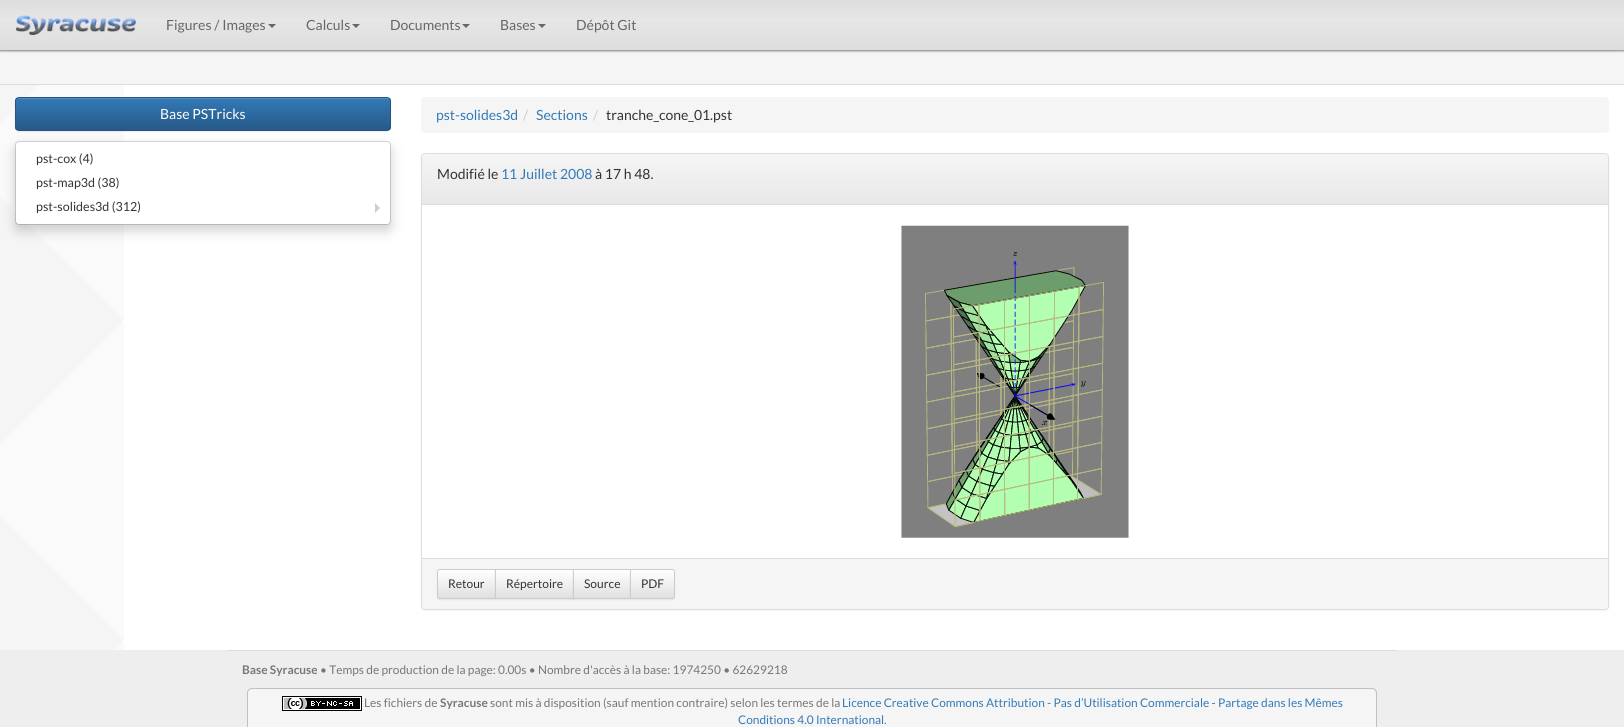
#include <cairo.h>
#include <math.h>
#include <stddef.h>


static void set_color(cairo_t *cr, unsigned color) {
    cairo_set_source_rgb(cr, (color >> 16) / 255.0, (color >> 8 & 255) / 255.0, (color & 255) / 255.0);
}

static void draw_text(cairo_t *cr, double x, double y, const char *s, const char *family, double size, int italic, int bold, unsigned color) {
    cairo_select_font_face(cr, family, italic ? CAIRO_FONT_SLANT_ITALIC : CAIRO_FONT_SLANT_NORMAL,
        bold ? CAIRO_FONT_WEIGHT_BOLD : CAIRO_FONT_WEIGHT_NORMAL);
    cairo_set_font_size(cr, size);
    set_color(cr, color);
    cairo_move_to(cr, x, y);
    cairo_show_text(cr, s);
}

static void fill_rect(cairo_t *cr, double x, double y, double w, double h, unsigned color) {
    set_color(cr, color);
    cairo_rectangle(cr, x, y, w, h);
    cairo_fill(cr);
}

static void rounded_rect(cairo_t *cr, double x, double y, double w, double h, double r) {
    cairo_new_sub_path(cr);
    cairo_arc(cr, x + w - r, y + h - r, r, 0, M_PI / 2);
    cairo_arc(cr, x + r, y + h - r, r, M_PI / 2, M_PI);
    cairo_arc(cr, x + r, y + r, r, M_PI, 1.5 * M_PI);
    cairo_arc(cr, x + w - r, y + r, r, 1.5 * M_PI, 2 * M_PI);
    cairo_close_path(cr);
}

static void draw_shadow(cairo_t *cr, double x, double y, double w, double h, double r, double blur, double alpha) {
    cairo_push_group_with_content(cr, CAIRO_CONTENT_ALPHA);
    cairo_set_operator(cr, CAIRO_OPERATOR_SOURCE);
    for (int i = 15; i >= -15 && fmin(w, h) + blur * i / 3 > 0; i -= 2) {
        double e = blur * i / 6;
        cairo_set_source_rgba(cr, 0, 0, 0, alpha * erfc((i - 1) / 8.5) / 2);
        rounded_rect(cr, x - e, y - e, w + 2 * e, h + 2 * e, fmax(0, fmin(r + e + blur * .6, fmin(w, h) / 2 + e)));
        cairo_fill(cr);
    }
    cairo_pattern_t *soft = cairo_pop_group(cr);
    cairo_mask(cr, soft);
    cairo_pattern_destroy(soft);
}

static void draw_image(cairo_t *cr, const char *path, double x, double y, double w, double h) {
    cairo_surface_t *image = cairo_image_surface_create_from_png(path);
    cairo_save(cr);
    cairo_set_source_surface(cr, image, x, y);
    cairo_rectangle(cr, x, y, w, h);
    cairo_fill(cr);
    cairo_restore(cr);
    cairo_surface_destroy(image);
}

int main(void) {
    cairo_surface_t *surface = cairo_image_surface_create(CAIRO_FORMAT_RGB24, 1624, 727);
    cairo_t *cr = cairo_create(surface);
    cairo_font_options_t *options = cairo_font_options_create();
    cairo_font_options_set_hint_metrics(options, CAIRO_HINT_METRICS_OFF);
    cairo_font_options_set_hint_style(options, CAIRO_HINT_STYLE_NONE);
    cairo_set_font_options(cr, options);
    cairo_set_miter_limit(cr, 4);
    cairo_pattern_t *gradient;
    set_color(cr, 0xFFFFFF);
    cairo_paint(cr);
    draw_image(cr, "assets/img1.png", 0, 85, 124, 565);
    fill_rect(cr, 0, 50, 1624, 34, 0xF5F5F5);
    set_color(cr, 0x808080);
    draw_shadow(cr, 0, 1, 1624, 50, 0, 1, 1);
    gradient = cairo_pattern_create_linear(812, 0, 812, 50);
    cairo_pattern_add_color_stop_rgba(gradient, 0, 0.867, 0.867, 0.867, 1);
    cairo_pattern_add_color_stop_rgba(gradient, 0.4, 0.902, 0.902, 0.902, 1);
    cairo_pattern_add_color_stop_rgba(gradient, 1, 0.867, 0.867, 0.867, 1);
    cairo_set_source(cr, gradient);
    cairo_pattern_destroy(gradient);
    cairo_rectangle(cr, 0, 0, 1624, 50);
    cairo_fill(cr);
    draw_image(cr, "assets/img2.png", 15, 15, 121, 20);
    draw_text(cr, 166, 30, "Figures / Images", "Lato", 14, 0, 0, 0x666666);
    cairo_new_path(cr);
    cairo_move_to(cr, 268, 24);
    cairo_line_to(cr, 276, 24);
    cairo_line_to(cr, 272, 28);
    cairo_close_path(cr);
    cairo_fill(cr);
    draw_text(cr, 306, 30, "Calculs", "Lato", 14, 0, 0, 0x666666);
    cairo_new_path(cr);
    cairo_move_to(cr, 352, 24);
    cairo_line_to(cr, 360, 24);
    cairo_line_to(cr, 356, 28);
    cairo_close_path(cr);
    cairo_fill(cr);
    draw_text(cr, 390, 30, "Documents", "Lato", 14, 0, 0, 0x666666);
    cairo_new_path(cr);
    cairo_move_to(cr, 462, 24);
    cairo_line_to(cr, 470, 24);
    cairo_line_to(cr, 466, 28);
    cairo_close_path(cr);
    cairo_fill(cr);
    draw_text(cr, 500, 30, "Bases", "Lato", 14, 0, 0, 0x666666);
    cairo_new_path(cr);
    cairo_move_to(cr, 538, 24);
    cairo_line_to(cr, 546, 24);
    cairo_line_to(cr, 542, 28);
    cairo_close_path(cr);
    cairo_fill(cr);
    draw_text(cr, 576, 30, "Dépôt Git", "Lato", 14, 0, 0, 0x666666);
    fill_rect(cr, 0, 84, 1624, 1, 0xDCDCDC);
    set_color(cr, 0x000000);
    draw_shadow(cr, 15, 98, 376, 34, 4, 0.5, 0.07);
    cairo_save(cr);
    rounded_rect(cr, 15, 97, 376, 34, 4);
    cairo_clip(cr);
    gradient = cairo_pattern_create_linear(203, 98, 203, 130);
    cairo_pattern_add_color_stop_rgba(gradient, 0, 0.2, 0.478, 0.718, 1);
    cairo_pattern_add_color_stop_rgba(gradient, 1, 0.149, 0.353, 0.533, 1);
    cairo_set_source(cr, gradient);
    cairo_pattern_destroy(gradient);
    cairo_rectangle(cr, 15, 98, 376, 32);
    cairo_fill(cr);
    cairo_restore(cr);
    set_color(cr, 0x528EC1);
    cairo_new_path(cr);
    cairo_move_to(cr, 19, 99);
    cairo_line_to(cr, 387, 99);
    cairo_curve_to(cr, 389, 99, 390, 100, 390, 102);
    cairo_curve_to(cr, 390, 100, 389, 98, 387, 98);
    cairo_line_to(cr, 19, 98);
    cairo_line_to(cr, 17, 99);
    cairo_line_to(cr, 16, 102);
    cairo_curve_to(cr, 16, 100, 17, 99, 19, 99);
    cairo_close_path(cr);
    cairo_fill(cr);
    rounded_rect(cr, 15.5, 97.5, 375, 33, 3.5);
    set_color(cr, 0x245580);
    cairo_set_line_width(cr, 1);
    cairo_stroke(cr);
    draw_text(cr, 160, 119, "Base PSTricks", "Lato", 14, 0, 0, 0xFFFFFF);
    set_color(cr, 0x000000);
    draw_shadow(cr, 15, 147, 376, 84, 4, 6, 0.18);
    set_color(cr, 0xFFFFFF);
    rounded_rect(cr, 16, 142, 374, 82, 3);
    cairo_fill(cr);
    rounded_rect(cr, 15.5, 141.5, 375, 83, 3.5);
    cairo_set_source_rgba(cr, 0, 0, 0, 0.15);
    cairo_stroke(cr);
    draw_text(cr, 36, 163, "pst-cox (4)", "Lato", 12.5, 0, 0, 0x333333);
    draw_text(cr, 36, 187, "pst-map3d (38)", "Lato", 12.5, 0, 0, 0x333333);
    draw_text(cr, 36, 211, "pst-solides3d (312)", "Lato", 12.5, 0, 0, 0x333333);
    set_color(cr, 0xCCCCCC);
    cairo_new_path(cr);
    cairo_move_to(cr, 375, 213);
    cairo_line_to(cr, 375, 203);
    cairo_line_to(cr, 380, 208);
    cairo_close_path(cr);
    cairo_fill(cr);
    set_color(cr, 0xF5F5F5);
    rounded_rect(cr, 421, 97, 1188, 36, 4);
    cairo_fill(cr);
    draw_text(cr, 436, 120, "pst-solides3d", "Lato", 14, 0, 0, 0x337AB7);
    draw_text(cr, 523, 120, "/", "Lato", 14, 0, 0, 0xCCCCCC);
    draw_text(cr, 536, 120, "Sections", "Lato", 14, 0, 0, 0x337AB7);
    draw_text(cr, 593, 120, "/", "Lato", 14, 0, 0, 0xCCCCCC);
    draw_text(cr, 606, 120, "tranche_cone_01.pst", "Lato", 14, 0, 0, 0x333333);
    set_color(cr, 0x000000);
    draw_shadow(cr, 421, 154, 1188, 457, 4, 1, 0.05);
    set_color(cr, 0xFFFFFF);
    rounded_rect(cr, 421.5, 153.5, 1187, 456, 3.5);
    cairo_fill_preserve(cr);
    set_color(cr, 0xDDDDDD);
    cairo_stroke(cr);
    gradient = cairo_pattern_create_linear(1015, 154, 1015, 204);
    cairo_pattern_add_color_stop_rgba(gradient, 0, 0.961, 0.961, 0.961, 1);
    cairo_pattern_add_color_stop_rgba(gradient, 1, 0.91, 0.91, 0.91, 1);
    cairo_set_source(cr, gradient);
    cairo_pattern_destroy(gradient);
    cairo_new_path(cr);
    cairo_move_to(cr, 425, 154);
    cairo_line_to(cr, 1605, 154);
    cairo_curve_to(cr, 1606.5, 154, 1608, 155.5, 1608, 157);
    cairo_line_to(cr, 1608, 204);
    cairo_line_to(cr, 422, 204);
    cairo_line_to(cr, 422, 157);
    cairo_curve_to(cr, 422, 155.5, 423.5, 154, 425, 154);
    cairo_close_path(cr);
    cairo_fill(cr);
    fill_rect(cr, 422, 204, 1186, 1, 0xDDDDDD);
    draw_text(cr, 437, 179, "Modifié le", "Lato", 14, 0, 0, 0x333333);
    draw_text(cr, 501, 179, "11 Juillet 2008", "Lato", 14, 0, 0, 0x337AB7);
    draw_text(cr, 595, 179, "à 17 h 48.", "Lato", 14, 0, 0, 0x333333);
    draw_image(cr, "assets/img3.png", 901, 225, 228, 313);
    set_color(cr, 0xF5F5F5);
    cairo_new_path(cr);
    cairo_move_to(cr, 422, 558);
    cairo_line_to(cr, 1608, 558);
    cairo_line_to(cr, 1608, 606);
    cairo_curve_to(cr, 1608, 607.5, 1606.5, 609, 1605, 609);
    cairo_line_to(cr, 425, 609);
    cairo_curve_to(cr, 423.5, 609, 422, 607.5, 422, 606);
    cairo_close_path(cr);
    cairo_fill(cr);
    fill_rect(cr, 422, 558, 1186, 1, 0xDDDDDD);
    set_color(cr, 0x000000);
    draw_shadow(cr, 437, 570, 59, 30, 3, 0.5, 0.07);
    cairo_save(cr);
    cairo_new_path(cr);
    cairo_move_to(cr, 440, 569);
    cairo_line_to(cr, 496, 569);
    cairo_line_to(cr, 496, 599);
    cairo_line_to(cr, 440, 599);
    cairo_curve_to(cr, 438.5, 599, 437, 597.5, 437, 596);
    cairo_line_to(cr, 437, 572);
    cairo_curve_to(cr, 437, 570.5, 438.5, 569, 440, 569);
    cairo_close_path(cr);
    cairo_clip(cr);
    gradient = cairo_pattern_create_linear(467, 570, 467, 598);
    cairo_pattern_add_color_stop_rgba(gradient, 0, 1, 1, 1, 1);
    cairo_pattern_add_color_stop_rgba(gradient, 1, 0.878, 0.878, 0.878, 1);
    cairo_set_source(cr, gradient);
    cairo_pattern_destroy(gradient);
    cairo_rectangle(cr, 437, 570, 58, 28);
    cairo_fill(cr);
    cairo_restore(cr);
    cairo_new_path(cr);
    cairo_move_to(cr, 440, 569.5);
    cairo_line_to(cr, 495.5, 569.5);
    cairo_line_to(cr, 495.5, 598.5);
    cairo_line_to(cr, 440, 598.5);
    cairo_curve_to(cr, 438.5, 598.5, 437.5, 597.5, 437.5, 596);
    cairo_line_to(cr, 437.5, 572);
    cairo_curve_to(cr, 437.5, 570.5, 438.5, 569.5, 440, 569.5);
    cairo_close_path(cr);
    set_color(cr, 0xCCCCCC);
    cairo_stroke(cr);
    draw_text(cr, 448, 588, "Retour", "Lato", 12, 0, 0, 0x333333);
    set_color(cr, 0x000000);
    draw_shadow(cr, 495, 570, 79, 30, 0, 0.5, 0.07);
    gradient = cairo_pattern_create_linear(535, 570, 535, 598);
    cairo_pattern_add_color_stop_rgba(gradient, 0, 1, 1, 1, 1);
    cairo_pattern_add_color_stop_rgba(gradient, 1, 0.878, 0.878, 0.878, 1);
    cairo_set_source(cr, gradient);
    cairo_pattern_destroy(gradient);
    cairo_rectangle(cr, 496, 570, 77, 28);
    cairo_fill(cr);
    cairo_rectangle(cr, 495.5, 569.5, 78, 29);
    set_color(cr, 0xCCCCCC);
    cairo_stroke(cr);
    draw_text(cr, 506, 588, "Répertoire", "Lato", 12, 0, 0, 0x333333);
    set_color(cr, 0x000000);
    draw_shadow(cr, 573, 570, 58, 30, 0, 0.5, 0.07);
    gradient = cairo_pattern_create_linear(602, 570, 602, 598);
    cairo_pattern_add_color_stop_rgba(gradient, 0, 1, 1, 1, 1);
    cairo_pattern_add_color_stop_rgba(gradient, 1, 0.878, 0.878, 0.878, 1);
    cairo_set_source(cr, gradient);
    cairo_pattern_destroy(gradient);
    cairo_rectangle(cr, 574, 570, 56, 28);
    cairo_fill(cr);
    cairo_rectangle(cr, 573.5, 569.5, 57, 29);
    set_color(cr, 0xCCCCCC);
    cairo_stroke(cr);
    draw_text(cr, 584, 588, "Source", "Lato", 12, 0, 0, 0x333333);
    set_color(cr, 0x000000);
    draw_shadow(cr, 630, 570, 45, 30, 3, 0.5, 0.07);
    cairo_save(cr);
    cairo_new_path(cr);
    cairo_move_to(cr, 630, 569);
    cairo_line_to(cr, 672, 569);
    cairo_curve_to(cr, 673.5, 569, 675, 570.5, 675, 572);
    cairo_line_to(cr, 675, 596);
    cairo_curve_to(cr, 675, 597.5, 673.5, 599, 672, 599);
    cairo_line_to(cr, 630, 599);
    cairo_close_path(cr);
    cairo_clip(cr);
    gradient = cairo_pattern_create_linear(653, 570, 653, 598);
    cairo_pattern_add_color_stop_rgba(gradient, 0, 1, 1, 1, 1);
    cairo_pattern_add_color_stop_rgba(gradient, 1, 0.878, 0.878, 0.878, 1);
    cairo_set_source(cr, gradient);
    cairo_pattern_destroy(gradient);
    cairo_rectangle(cr, 631, 570, 44, 28);
    cairo_fill(cr);
    cairo_restore(cr);
    cairo_new_path(cr);
    cairo_move_to(cr, 630.5, 569.5);
    cairo_line_to(cr, 672, 569.5);
    cairo_curve_to(cr, 673.5, 569.5, 674.5, 570.5, 674.5, 572);
    cairo_line_to(cr, 674.5, 596);
    cairo_curve_to(cr, 674.5, 597.5, 673.5, 598.5, 672, 598.5);
    cairo_line_to(cr, 630.5, 598.5);
    cairo_close_path(cr);
    set_color(cr, 0xCCCCCC);
    cairo_stroke(cr);
    draw_text(cr, 641, 588, "PDF", "Lato", 12, 0, 0, 0x333333);
    fill_rect(cr, 0, 650, 1624, 77, 0xEEEEEE);
    fill_rect(cr, 227, 650, 1170, 1, 0xDDDDDD);
    draw_text(cr, 242, 674, "Base Syracuse", "Lato", 11.9, 0, 1, 0x777777);
    draw_text(cr, 320, 674, "• Temps de production de la page: 0.00s • Nombre d'accès à la base: 1974250 • 62629218", "Lato", 11.9, 0, 0, 0x777777);
    set_color(cr, 0xF5F5F5);
    rounded_rect(cr, 247.5, 688.5, 1129, 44, 4.5);
    cairo_fill_preserve(cr);
    set_color(cr, 0xC0C0C0);
    cairo_stroke(cr);
    draw_image(cr, "assets/img4.png", 282, 696, 80, 15);
    draw_text(cr, 364, 707, "Les fichiers de", "Lato", 11.9, 0, 0, 0x777777);
    draw_text(cr, 440, 707, "Syracuse", "Lato", 11.9, 0, 1, 0x777777);
    draw_text(cr, 490, 707, "sont mis à disposition (sauf mention contraire) selon les termes de la", "Lato", 11.9, 0, 0, 0x777777);
    draw_text(cr, 842, 707, "Licence Creative Commons Attribution - Pas d’Utilisation Commerciale - Partage dans les Mêmes", "Lato", 11.9, 0, 0, 0x337AB7);
    draw_text(cr, 738, 724, "Conditions 4.0 International", "Lato", 11.9, 0, 0, 0x337AB7);
    draw_text(cr, 884, 724, ".", "Lato", 11.9, 0, 0, 0x777777);
    cairo_surface_write_to_png(surface, "output.png");
    cairo_font_options_destroy(options);
    cairo_destroy(cr);
    cairo_surface_destroy(surface);
    return 0;
}
